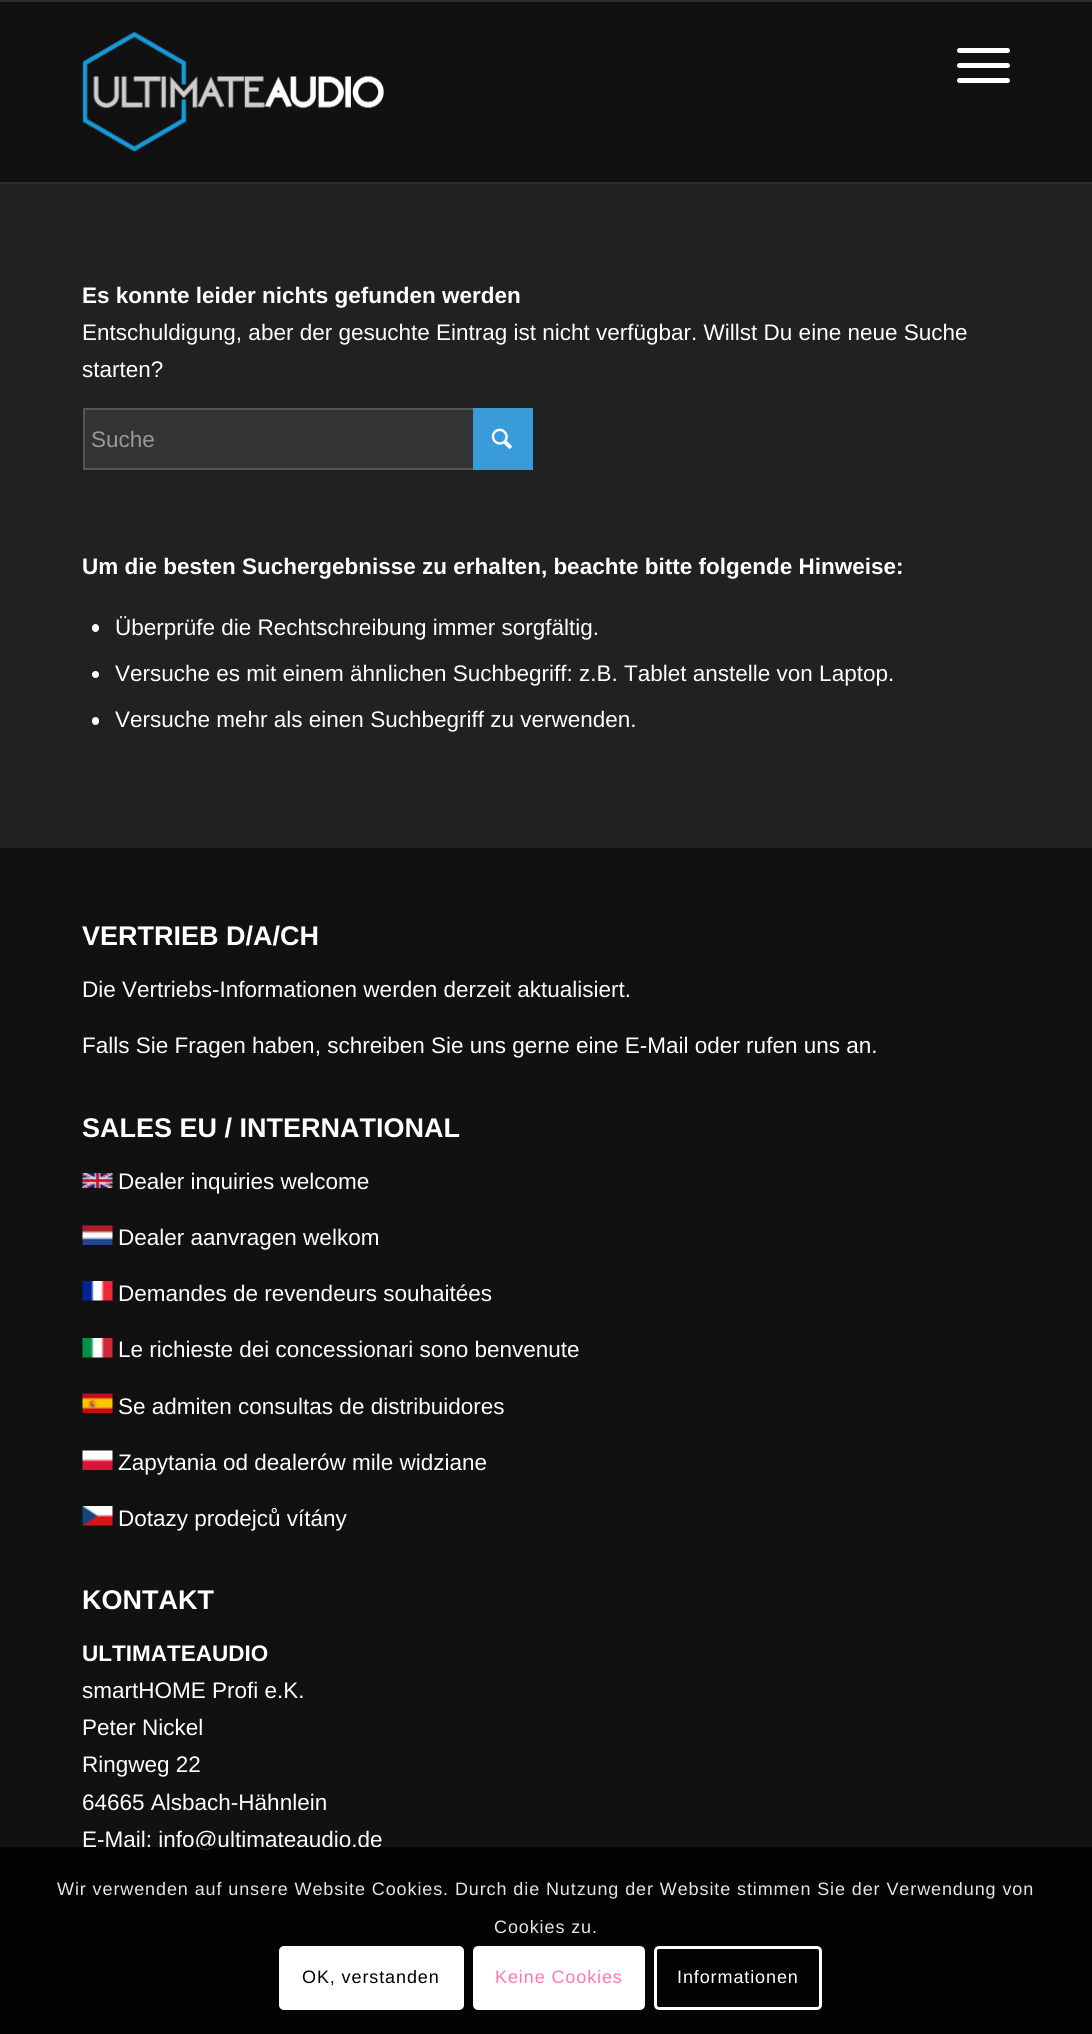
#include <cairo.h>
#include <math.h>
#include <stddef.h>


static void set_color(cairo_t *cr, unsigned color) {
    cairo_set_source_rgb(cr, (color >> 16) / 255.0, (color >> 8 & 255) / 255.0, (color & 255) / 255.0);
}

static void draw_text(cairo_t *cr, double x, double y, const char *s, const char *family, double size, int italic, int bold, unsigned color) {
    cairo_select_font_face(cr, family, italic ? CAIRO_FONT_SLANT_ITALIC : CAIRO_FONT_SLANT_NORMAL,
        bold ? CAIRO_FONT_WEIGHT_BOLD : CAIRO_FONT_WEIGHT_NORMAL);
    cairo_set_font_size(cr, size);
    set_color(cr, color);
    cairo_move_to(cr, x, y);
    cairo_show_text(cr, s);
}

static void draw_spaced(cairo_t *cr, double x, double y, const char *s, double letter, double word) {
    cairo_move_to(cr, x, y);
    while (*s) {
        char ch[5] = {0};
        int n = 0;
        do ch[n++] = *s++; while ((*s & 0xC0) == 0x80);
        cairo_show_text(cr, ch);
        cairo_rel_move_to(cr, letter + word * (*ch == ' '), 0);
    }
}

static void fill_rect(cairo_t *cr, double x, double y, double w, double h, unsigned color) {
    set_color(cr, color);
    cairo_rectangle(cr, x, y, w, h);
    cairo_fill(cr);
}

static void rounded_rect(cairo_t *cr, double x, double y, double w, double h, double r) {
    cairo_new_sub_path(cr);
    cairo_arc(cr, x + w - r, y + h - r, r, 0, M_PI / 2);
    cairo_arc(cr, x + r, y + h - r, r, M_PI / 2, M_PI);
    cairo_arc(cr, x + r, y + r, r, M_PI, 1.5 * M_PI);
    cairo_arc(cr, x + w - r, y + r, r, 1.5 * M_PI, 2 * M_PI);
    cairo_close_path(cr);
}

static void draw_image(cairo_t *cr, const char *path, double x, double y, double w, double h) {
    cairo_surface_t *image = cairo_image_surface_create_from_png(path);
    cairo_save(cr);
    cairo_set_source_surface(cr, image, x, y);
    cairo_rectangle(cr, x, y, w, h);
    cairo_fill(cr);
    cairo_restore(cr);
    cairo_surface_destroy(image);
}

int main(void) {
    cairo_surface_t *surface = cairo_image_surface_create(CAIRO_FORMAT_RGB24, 1092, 2034);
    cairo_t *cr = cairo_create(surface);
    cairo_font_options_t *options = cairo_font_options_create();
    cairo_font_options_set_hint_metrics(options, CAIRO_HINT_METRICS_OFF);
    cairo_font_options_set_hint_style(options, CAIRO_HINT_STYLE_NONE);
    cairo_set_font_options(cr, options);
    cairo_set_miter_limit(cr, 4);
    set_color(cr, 0x111111);
    cairo_paint(cr);
    fill_rect(cr, 0, 0, 1092, 2, 0x2B2B2B);
    fill_rect(cr, 0, 182, 1092, 2, 0x2B2B2B);
    draw_image(cr, "assets/img1.png", 82, 31, 302, 121);
    set_color(cr, 0xFFFFFF);
    rounded_rect(cr, 957, 63, 53, 5, 2.5);
    cairo_fill(cr);
    rounded_rect(cr, 957, 48, 53, 5, 2.5);
    cairo_fill(cr);
    rounded_rect(cr, 957, 78, 53, 5, 2.5);
    cairo_fill(cr);
    fill_rect(cr, 0, 184, 1092, 664, 0x212121);
    draw_text(cr, 82, 303, "Es konnte leider nichts gefunden werden", "Liberation Sans", 22.5, 0, 1, 0xFFFFFF);
    draw_text(cr, 82, 340, "Entschuldigung, aber der gesuchte Eintrag ist nicht verfügbar. Willst Du eine neue Suche", "Liberation Sans", 22.5, 0, 0, 0xFFFFFF);
    draw_text(cr, 82, 377, "starten?", "Liberation Sans", 22.5, 0, 0, 0xFFFFFF);
    fill_rect(cr, 85, 410, 388, 58, 0x333333);
    cairo_rectangle(cr, 84, 409, 448, 60);
    set_color(cr, 0x555555);
    cairo_stroke(cr);
    fill_rect(cr, 473, 408, 60, 62, 0x399BD8);
    draw_text(cr, 91, 447, "Suche", "Liberation Sans", 22.5, 0, 0, 0x999999);
    draw_image(cr, "assets/img2.png", 491, 428, 21, 21);
    draw_text(cr, 82, 574, "Um die besten Suchergebnisse zu erhalten, beachte bitte folgende Hinweise:", "Liberation Sans", 22.5, 0, 1, 0xFFFFFF);
    rounded_rect(cr, 92, 624, 7, 8, 3.5);
    cairo_fill(cr);
    draw_text(cr, 115, 635, "Überprüfe die Rechtschreibung immer sorgfältig.", "Liberation Sans", 22.5, 0, 0, 0xFFFFFF);
    cairo_new_path(cr);
    cairo_arc(cr, 95.5, 674.5, 3.5, 0, 2 * M_PI);
    cairo_fill(cr);
    draw_text(cr, 115, 681, "Versuche es mit einem ähnlichen Suchbegriff: z.B. Tablet anstelle von Laptop.", "Liberation Sans", 22.5, 0, 0, 0xFFFFFF);
    rounded_rect(cr, 92, 717, 7, 8, 3.5);
    cairo_fill(cr);
    draw_text(cr, 115, 727, "Versuche mehr als einen Suchbegriff zu verwenden.", "Liberation Sans", 22.5, 0, 0, 0xFFFFFF);
    draw_text(cr, 82, 945, "VERTRIEB D/A/CH", "Liberation Sans", 27, 0, 1, 0xFFFFFF);
    draw_text(cr, 82, 997, "Die Vertriebs-Informationen werden derzeit aktualisiert.", "Liberation Sans", 22.5, 0, 0, 0xFFFFFF);
    draw_text(cr, 82, 1053, "Falls Sie Fragen haben, schreiben Sie uns gerne eine E-Mail oder rufen uns an.", "Liberation Sans", 22.5, 0, 0, 0xFFFFFF);
    draw_text(cr, 82, 1137, "SALES EU / INTERNATIONAL", "Liberation Sans", 27, 0, 1, 0xFFFFFF);
    draw_image(cr, "assets/img3.png", 82, 1173, 31, 15);
    draw_text(cr, 118, 1189, "Dealer inquiries welcome", "Liberation Sans", 22.5, 0, 0, 0xFFFFFF);
    draw_image(cr, "assets/img4.png", 82, 1225, 31, 20);
    draw_text(cr, 118, 1245, "Dealer aanvragen welkom", "Liberation Sans", 22.5, 0, 0, 0xFFFFFF);
    draw_image(cr, "assets/img5.png", 82, 1281, 31, 20);
    draw_text(cr, 118, 1301, "Demandes de revendeurs souhaitées", "Liberation Sans", 22.5, 0, 0, 0xFFFFFF);
    draw_image(cr, "assets/img6.png", 82, 1338, 31, 20);
    draw_text(cr, 118, 1357, "Le richieste dei concessionari sono benvenute", "Liberation Sans", 22.5, 0, 0, 0xFFFFFF);
    draw_image(cr, "assets/img7.png", 82, 1393, 31, 20);
    draw_text(cr, 118, 1414, "Se admiten consultas de distribuidores", "Liberation Sans", 22.5, 0, 0, 0xFFFFFF);
    draw_image(cr, "assets/img8.png", 82, 1450, 31, 20);
    draw_text(cr, 118, 1470, "Zapytania od dealerów mile widziane", "Liberation Sans", 22.5, 0, 0, 0xFFFFFF);
    draw_image(cr, "assets/img9.png", 82, 1506, 31, 20);
    draw_text(cr, 118, 1526, "Dotazy prodejců vítány", "Liberation Sans", 22.5, 0, 0, 0xFFFFFF);
    draw_text(cr, 82, 1609, "KONTAKT", "Liberation Sans", 27, 0, 1, 0xFFFFFF);
    draw_text(cr, 82, 1661, "ULTIMATEAUDIO", "Liberation Sans", 22.5, 0, 1, 0xFFFFFF);
    draw_text(cr, 82, 1698, "smartHOME Profi e.K.", "Liberation Sans", 22.5, 0, 0, 0xFFFFFF);
    draw_text(cr, 82, 1735, "Peter Nickel", "Liberation Sans", 22.5, 0, 0, 0xFFFFFF);
    draw_text(cr, 82, 1772, "Ringweg 22", "Liberation Sans", 22.5, 0, 0, 0xFFFFFF);
    draw_text(cr, 82, 1810, "64665 Alsbach-Hähnlein", "Liberation Sans", 22.5, 0, 0, 0xFFFFFF);
    draw_text(cr, 82, 1847, "E-Mail: info@ultimateaudio.de", "Liberation Sans", 22.5, 0, 0, 0xFFFFFF);
    cairo_set_source_rgba(cr, 0, 0, 0, 0.85);
    cairo_rectangle(cr, 0, 1847, 1092, 187);
    cairo_fill(cr);
    cairo_set_font_size(cr, 18);
    set_color(cr, 0xE6E6E6);
    draw_spaced(cr, 57, 1895, "Wir verwenden auf unsere Website Cookies. Durch die Nutzung der Website stimmen Sie der Verwendung von", 0.9, 0);
    draw_spaced(cr, 494, 1933, "Cookies zu.", 0.9, 0);
    set_color(cr, 0xFFFFFF);
    rounded_rect(cr, 279, 1946, 185, 64, 5);
    cairo_fill(cr);
    set_color(cr, 0x000000);
    draw_spaced(cr, 302, 1983, "OK, verstanden", 0.9, 0);
    set_color(cr, 0xFFFFFF);
    rounded_rect(cr, 474.5, 1947.5, 169, 61, 3.5);
    cairo_fill_preserve(cr);
    cairo_set_line_width(cr, 3);
    cairo_stroke(cr);
    set_color(cr, 0xFF75B5);
    draw_spaced(cr, 495, 1983, "Keine Cookies", 0.9, 0);
    rounded_rect(cr, 655.5, 1947.5, 165, 61, 3.5);
    set_color(cr, 0xFFFFFF);
    cairo_stroke(cr);
    draw_spaced(cr, 677, 1983, "Informationen", 0.9, 0);
    cairo_surface_write_to_png(surface, "output.png");
    cairo_font_options_destroy(options);
    cairo_destroy(cr);
    cairo_surface_destroy(surface);
    return 0;
}
